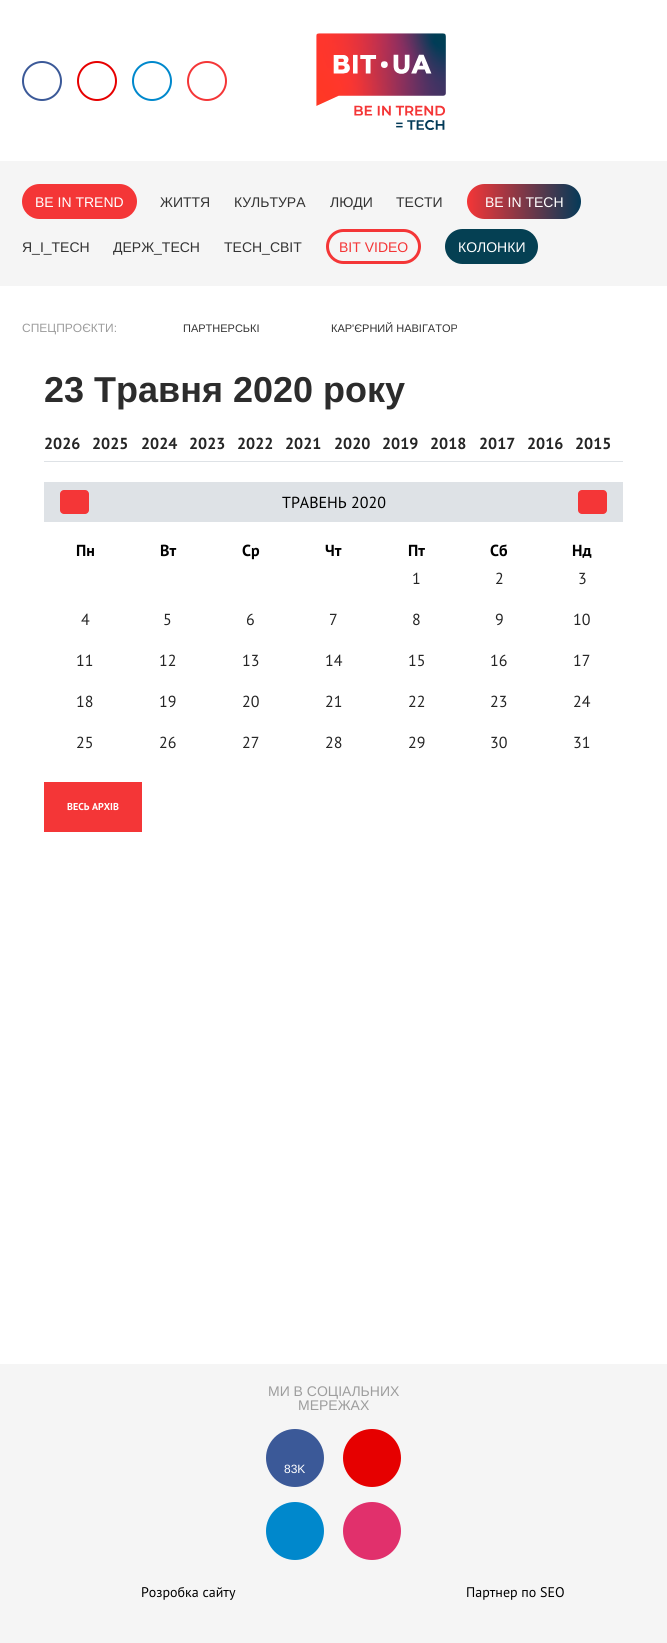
#include <cairo.h>
#include <math.h>
#include <stddef.h>


static void set_color(cairo_t *cr, unsigned color) {
    cairo_set_source_rgb(cr, (color >> 16) / 255.0, (color >> 8 & 255) / 255.0, (color & 255) / 255.0);
}

static void draw_text(cairo_t *cr, double x, double y, const char *s, const char *family, double size, int italic, int bold, unsigned color) {
    cairo_select_font_face(cr, family, italic ? CAIRO_FONT_SLANT_ITALIC : CAIRO_FONT_SLANT_NORMAL,
        bold ? CAIRO_FONT_WEIGHT_BOLD : CAIRO_FONT_WEIGHT_NORMAL);
    cairo_set_font_size(cr, size);
    set_color(cr, color);
    cairo_move_to(cr, x, y);
    cairo_show_text(cr, s);
}

static void fill_rect(cairo_t *cr, double x, double y, double w, double h, unsigned color) {
    set_color(cr, color);
    cairo_rectangle(cr, x, y, w, h);
    cairo_fill(cr);
}

static void rounded_rect(cairo_t *cr, double x, double y, double w, double h, double r) {
    cairo_new_sub_path(cr);
    cairo_arc(cr, x + w - r, y + h - r, r, 0, M_PI / 2);
    cairo_arc(cr, x + r, y + h - r, r, M_PI / 2, M_PI);
    cairo_arc(cr, x + r, y + r, r, M_PI, 1.5 * M_PI);
    cairo_arc(cr, x + w - r, y + r, r, 1.5 * M_PI, 2 * M_PI);
    cairo_close_path(cr);
}

static void draw_image(cairo_t *cr, const char *path, double x, double y, double w, double h) {
    cairo_surface_t *image = cairo_image_surface_create_from_png(path);
    cairo_save(cr);
    cairo_set_source_surface(cr, image, x, y);
    cairo_rectangle(cr, x, y, w, h);
    cairo_fill(cr);
    cairo_restore(cr);
    cairo_surface_destroy(image);
}

int main(void) {
    cairo_surface_t *surface = cairo_image_surface_create(CAIRO_FORMAT_RGB24, 667, 1643);
    cairo_t *cr = cairo_create(surface);
    cairo_font_options_t *options = cairo_font_options_create();
    cairo_font_options_set_hint_metrics(options, CAIRO_HINT_METRICS_OFF);
    cairo_font_options_set_hint_style(options, CAIRO_HINT_STYLE_NONE);
    cairo_set_font_options(cr, options);
    cairo_set_miter_limit(cr, 4);
    cairo_pattern_t *gradient;
    set_color(cr, 0xFFFFFF);
    cairo_paint(cr);
    cairo_arc(cr, 42, 81, 19, 0, 2 * M_PI);
    set_color(cr, 0x3B5998);
    cairo_stroke(cr);
    cairo_arc(cr, 97, 81, 19, 0, 2 * M_PI);
    set_color(cr, 0xE60000);
    cairo_stroke(cr);
    cairo_arc(cr, 152, 81, 19, 0, 2 * M_PI);
    set_color(cr, 0x0088CC);
    cairo_stroke(cr);
    cairo_arc(cr, 207, 81, 19, 0, 2 * M_PI);
    set_color(cr, 0xF43637);
    cairo_stroke(cr);
    draw_image(cr, "assets/img1.png", 316, 33, 130, 97);
    fill_rect(cr, 0, 161, 667, 125, 0xF5F5F5);
    set_color(cr, 0xF43637);
    rounded_rect(cr, 23.5, 185.5, 112, 32, 16);
    cairo_fill_preserve(cr);
    cairo_set_line_width(cr, 3);
    cairo_stroke(cr);
    draw_text(cr, 35, 207, "BE IN TREND", "Liberation Sans", 14, 0, 0, 0xFFFFFF);
    draw_text(cr, 160, 207, "ЖИТТЯ", "Liberation Sans", 14, 0, 0, 0x333333);
    draw_text(cr, 234, 207, "КУЛЬТУРА", "Liberation Sans", 14, 0, 0, 0x333333);
    draw_text(cr, 330, 207, "ЛЮДИ", "Liberation Sans", 14, 0, 0, 0x333333);
    draw_text(cr, 396, 207, "ТЕСТИ", "Liberation Sans", 14, 0, 0, 0x333333);
    gradient = cairo_pattern_create_linear(467, 202, 581, 202);
    cairo_pattern_add_color_stop_rgba(gradient, 0, 0.957, 0.212, 0.216, 1);
    cairo_pattern_add_color_stop_rgba(gradient, 1, 0.02, 0.227, 0.345, 1);
    cairo_set_source(cr, gradient);
    cairo_pattern_destroy(gradient);
    rounded_rect(cr, 467, 184, 114, 35, 17.5);
    cairo_fill(cr);
    draw_text(cr, 485, 207, "BE IN TECH", "Liberation Sans", 14, 0, 0, 0xFFFFFF);
    draw_text(cr, 22, 252, "Я_І_TECH", "Liberation Sans", 14, 0, 0, 0x333333);
    draw_text(cr, 113, 252, "ДЕРЖ_TECH", "Liberation Sans", 14, 0, 0, 0x333333);
    draw_text(cr, 224, 252, "TECH_СВІТ", "Liberation Sans", 14, 0, 0, 0x333333);
    rounded_rect(cr, 327.5, 230.5, 92, 32, 16);
    set_color(cr, 0xF43637);
    cairo_stroke(cr);
    draw_text(cr, 339, 252, "BIT VIDEO", "Liberation Sans", 14, 0, 0, 0xF43637);
    set_color(cr, 0x054053);
    rounded_rect(cr, 446.5, 230.5, 90, 32, 16);
    cairo_fill_preserve(cr);
    cairo_stroke(cr);
    draw_text(cr, 458, 252, "КОЛОНКИ", "Liberation Sans", 14, 0, 0, 0xFFFFFF);
    draw_text(cr, 22, 332, "СПЕЦПРОЄКТИ:", "Liberation Sans", 12, 0, 0, 0x9D9D9D);
    draw_text(cr, 183, 332, "ПАРТНЕРСЬКІ", "Liberation Sans", 11, 0, 0, 0x333333);
    draw_text(cr, 331, 332, "КАР'ЄРНИЙ НАВІГАТОР", "Liberation Sans", 11, 0, 0, 0x333333);
    gradient = cairo_pattern_create_linear(450, 329, 550, 329);
    cairo_pattern_add_color_stop_rgba(gradient, 0, 1, 0.996, 1, 0);
    cairo_pattern_add_color_stop_rgba(gradient, 1, 1, 0.996, 1, 1);
    cairo_set_source(cr, gradient);
    cairo_pattern_destroy(gradient);
    cairo_rectangle(cr, 452, 324, 5, 5);
    cairo_fill(cr);
    draw_text(cr, 44, 402, "23 Травня 2020 року", "Liberation Sans", 36, 0, 1, 0x2C2C2C);
    fill_rect(cr, 44, 461, 579, 1, 0xDEE2E6);
    draw_text(cr, 44, 449, "2026", "PT Sans", 16, 0, 1, 0x252525);
    draw_text(cr, 92, 449, "2025", "PT Sans", 16, 0, 1, 0x252525);
    draw_text(cr, 141, 449, "2024", "PT Sans", 16, 0, 1, 0x252525);
    draw_text(cr, 189, 449, "2023", "PT Sans", 16, 0, 1, 0x252525);
    draw_text(cr, 237, 449, "2022", "PT Sans", 16, 0, 1, 0x252525);
    draw_text(cr, 285, 449, "2021", "PT Sans", 16, 0, 1, 0x252525);
    draw_text(cr, 334, 449, "2020", "PT Sans", 16, 0, 1, 0x252525);
    draw_text(cr, 382, 449, "2019", "PT Sans", 16, 0, 1, 0x252525);
    draw_text(cr, 430, 449, "2018", "PT Sans", 16, 0, 1, 0x252525);
    draw_text(cr, 479, 449, "2017", "PT Sans", 16, 0, 1, 0x252525);
    draw_text(cr, 527, 449, "2016", "PT Sans", 16, 0, 1, 0x252525);
    draw_text(cr, 575, 449, "2015", "PT Sans", 16, 0, 1, 0x252525);
    fill_rect(cr, 44, 482, 579, 40, 0xDEE2E6);
    set_color(cr, 0xF43637);
    rounded_rect(cr, 60, 490, 29, 24, 4);
    cairo_fill(cr);
    draw_text(cr, 282, 508, "ТРАВЕНЬ 2020", "PT Sans", 16, 0, 0, 0x000000);
    set_color(cr, 0xF43637);
    rounded_rect(cr, 578, 490, 29, 24, 4);
    cairo_fill(cr);
    draw_text(cr, 76, 556, "Пн", "PT Sans", 16, 0, 1, 0x000000);
    draw_text(cr, 160, 556, "Вт", "PT Sans", 16, 0, 1, 0x000000);
    draw_text(cr, 242, 556, "Ср", "PT Sans", 16, 0, 1, 0x000000);
    draw_text(cr, 325, 556, "Чт", "PT Sans", 16, 0, 1, 0x000000);
    draw_text(cr, 408, 556, "Пт", "PT Sans", 16, 0, 1, 0x000000);
    draw_text(cr, 490, 556, "Сб", "PT Sans", 16, 0, 1, 0x000000);
    draw_text(cr, 572, 556, "Нд", "PT Sans", 16, 0, 1, 0x000000);
    draw_text(cr, 412, 584, "1", "PT Sans", 16, 0, 0, 0x252525);
    draw_text(cr, 495, 584, "2", "PT Sans", 16, 0, 0, 0x252525);
    draw_text(cr, 578, 584, "3", "PT Sans", 16, 0, 0, 0x252525);
    draw_text(cr, 81, 625, "4", "PT Sans", 16, 0, 0, 0x252525);
    draw_text(cr, 163, 625, "5", "PT Sans", 16, 0, 0, 0x252525);
    draw_text(cr, 246, 625, "6", "PT Sans", 16, 0, 0, 0x252525);
    draw_text(cr, 329, 625, "7", "PT Sans", 16, 0, 0, 0x252525);
    draw_text(cr, 412, 625, "8", "PT Sans", 16, 0, 0, 0x252525);
    draw_text(cr, 495, 625, "9", "PT Sans", 16, 0, 0, 0x252525);
    draw_text(cr, 573, 625, "10", "PT Sans", 16, 0, 0, 0x252525);
    draw_text(cr, 76, 666, "11", "PT Sans", 16, 0, 0, 0x252525);
    draw_text(cr, 159, 666, "12", "PT Sans", 16, 0, 0, 0x252525);
    draw_text(cr, 242, 666, "13", "PT Sans", 16, 0, 0, 0x252525);
    draw_text(cr, 325, 666, "14", "PT Sans", 16, 0, 0, 0x252525);
    draw_text(cr, 408, 666, "15", "PT Sans", 16, 0, 0, 0x252525);
    draw_text(cr, 490, 666, "16", "PT Sans", 16, 0, 0, 0x252525);
    draw_text(cr, 573, 666, "17", "PT Sans", 16, 0, 0, 0x252525);
    draw_text(cr, 76, 707, "18", "PT Sans", 16, 0, 0, 0x252525);
    draw_text(cr, 159, 707, "19", "PT Sans", 16, 0, 0, 0x252525);
    draw_text(cr, 242, 707, "20", "PT Sans", 16, 0, 0, 0x252525);
    draw_text(cr, 325, 707, "21", "PT Sans", 16, 0, 0, 0x252525);
    draw_text(cr, 408, 707, "22", "PT Sans", 16, 0, 0, 0x252525);
    draw_text(cr, 490, 707, "23", "PT Sans", 16, 0, 0, 0x252525);
    draw_text(cr, 573, 707, "24", "PT Sans", 16, 0, 0, 0x252525);
    draw_text(cr, 76, 748, "25", "PT Sans", 16, 0, 0, 0x252525);
    draw_text(cr, 159, 748, "26", "PT Sans", 16, 0, 0, 0x252525);
    draw_text(cr, 242, 748, "27", "PT Sans", 16, 0, 0, 0x252525);
    draw_text(cr, 325, 748, "28", "PT Sans", 16, 0, 0, 0x252525);
    draw_text(cr, 408, 748, "29", "PT Sans", 16, 0, 0, 0x252525);
    draw_text(cr, 490, 748, "30", "PT Sans", 16, 0, 0, 0x252525);
    draw_text(cr, 573, 748, "31", "PT Sans", 16, 0, 0, 0x252525);
    fill_rect(cr, 44, 782, 98, 50, 0xF43637);
    draw_text(cr, 67, 810, "ВЕСЬ АРХІВ", "PT Sans", 10, 0, 1, 0xFFFFFF);
    fill_rect(cr, 0, 1364, 667, 279, 0xF5F5F5);
    draw_text(cr, 268, 1396, "МИ В СОЦІАЛЬНИХ", "Liberation Sans", 14, 0, 0, 0x9D9D9D);
    draw_text(cr, 298, 1410, "МЕРЕЖАХ", "Liberation Sans", 14, 0, 0, 0x9D9D9D);
    set_color(cr, 0x3B5998);
    cairo_new_path(cr);
    cairo_arc(cr, 295, 1458, 29, 0, 2 * M_PI);
    cairo_fill(cr);
    draw_text(cr, 284, 1473, "83K", "Liberation Sans", 12, 0, 0, 0xFFFFFF);
    set_color(cr, 0xE60000);
    cairo_new_path(cr);
    cairo_arc(cr, 372, 1458, 29, 0, 2 * M_PI);
    cairo_fill(cr);
    set_color(cr, 0x0088CC);
    cairo_arc(cr, 295, 1531, 29, 0, 2 * M_PI);
    cairo_fill(cr);
    set_color(cr, 0xE1306C);
    cairo_arc(cr, 372, 1531, 29, 0, 2 * M_PI);
    cairo_fill(cr);
    draw_text(cr, 141, 1597, "Розробка сайту", "PT Sans", 14, 0, 0, 0x000000);
    draw_text(cr, 466, 1597, "Партнер по SEO", "PT Sans", 14, 0, 0, 0x000000);
    cairo_surface_write_to_png(surface, "output.png");
    cairo_font_options_destroy(options);
    cairo_destroy(cr);
    cairo_surface_destroy(surface);
    return 0;
}
